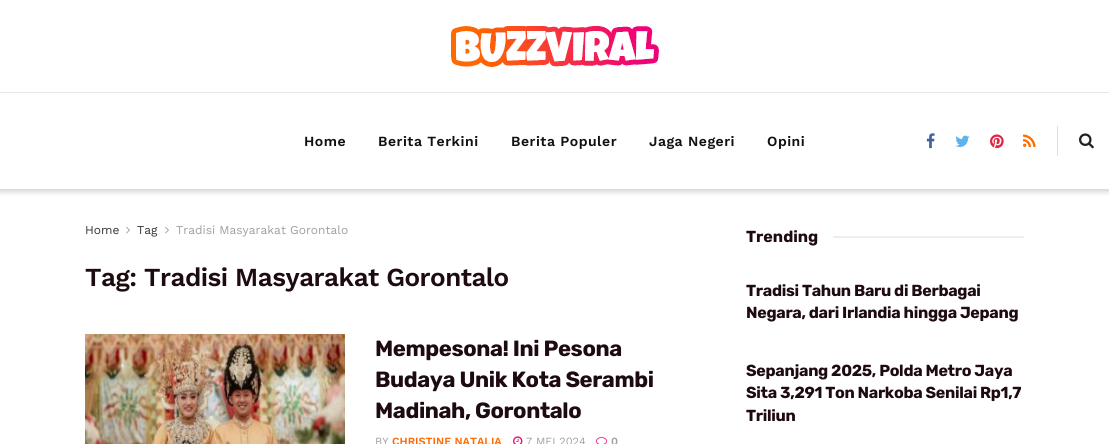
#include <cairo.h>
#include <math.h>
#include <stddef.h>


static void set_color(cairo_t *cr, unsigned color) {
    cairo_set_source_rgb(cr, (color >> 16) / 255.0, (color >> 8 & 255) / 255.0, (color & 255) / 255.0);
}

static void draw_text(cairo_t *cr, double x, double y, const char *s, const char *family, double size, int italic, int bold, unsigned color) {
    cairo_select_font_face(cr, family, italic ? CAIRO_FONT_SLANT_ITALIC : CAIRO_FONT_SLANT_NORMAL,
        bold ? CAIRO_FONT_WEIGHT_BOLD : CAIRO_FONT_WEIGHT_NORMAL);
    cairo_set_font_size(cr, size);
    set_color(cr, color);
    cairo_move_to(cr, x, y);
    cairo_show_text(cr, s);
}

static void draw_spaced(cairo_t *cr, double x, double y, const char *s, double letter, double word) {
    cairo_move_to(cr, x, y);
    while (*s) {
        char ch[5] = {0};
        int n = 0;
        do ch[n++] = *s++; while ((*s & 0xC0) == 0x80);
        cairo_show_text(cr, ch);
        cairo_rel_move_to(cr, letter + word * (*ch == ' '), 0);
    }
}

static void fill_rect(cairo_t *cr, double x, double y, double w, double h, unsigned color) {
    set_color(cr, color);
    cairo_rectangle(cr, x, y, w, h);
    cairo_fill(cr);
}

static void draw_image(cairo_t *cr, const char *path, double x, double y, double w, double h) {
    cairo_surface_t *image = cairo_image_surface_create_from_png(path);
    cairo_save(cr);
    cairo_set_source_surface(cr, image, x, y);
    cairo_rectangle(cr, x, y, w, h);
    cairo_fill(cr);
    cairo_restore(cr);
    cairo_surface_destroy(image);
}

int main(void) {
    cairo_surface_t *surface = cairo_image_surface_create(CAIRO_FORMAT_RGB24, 1109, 444);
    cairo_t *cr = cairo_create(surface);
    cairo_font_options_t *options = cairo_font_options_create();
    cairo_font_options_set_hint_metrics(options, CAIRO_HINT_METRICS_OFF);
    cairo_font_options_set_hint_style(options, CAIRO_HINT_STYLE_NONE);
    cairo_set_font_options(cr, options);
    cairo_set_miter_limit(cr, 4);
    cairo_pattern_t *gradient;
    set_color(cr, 0xFFFFFF);
    cairo_paint(cr);
    draw_image(cr, "assets/img1.png", 451, 26, 208, 41);
    fill_rect(cr, 0, 92, 1109, 1, 0xE8E8E8);
    cairo_select_font_face(cr, "Work Sans SemiBold", CAIRO_FONT_SLANT_NORMAL, CAIRO_FONT_WEIGHT_NORMAL);
    cairo_set_font_size(cr, 14);
    set_color(cr, 0x111111);
    draw_spaced(cr, 304, 146, "Home", 0.5, 0);
    draw_spaced(cr, 378, 146, "Berita Terkini", 0.5, 0);
    draw_spaced(cr, 511, 146, "Berita Populer", 0.5, 0);
    draw_spaced(cr, 649, 146, "Jaga Negeri", 0.5, 0);
    draw_spaced(cr, 767, 146, "Opini", 0.5, 0);
    draw_image(cr, "assets/img2.png", 926, 133, 9, 16);
    draw_image(cr, "assets/img3.png", 955, 135, 15, 12);
    draw_image(cr, "assets/img4.png", 990, 134, 14, 15);
    draw_image(cr, "assets/img5.png", 1023, 134, 13, 13);
    fill_rect(cr, 1057, 126, 1, 30, 0xE0E0E0);
    draw_image(cr, "assets/img6.png", 1079, 133, 15, 16);
    gradient = cairo_pattern_create_linear(555, 189, 555, 196);
    cairo_pattern_add_color_stop_rgba(gradient, 0, 0.851, 0.851, 0.851, 1);
    cairo_pattern_add_color_stop_rgba(gradient, 1, 1, 1, 1, 1);
    cairo_set_source(cr, gradient);
    cairo_pattern_destroy(gradient);
    cairo_rectangle(cr, 0, 189, 1109, 7);
    cairo_fill(cr);
    draw_text(cr, 85, 234, "Home", "Work Sans", 12, 0, 0, 0x333333);
    draw_image(cr, "assets/img7.png", 126, 226, 4, 8);
    draw_text(cr, 137, 234, "Tag", "Work Sans", 12, 0, 0, 0x333333);
    draw_image(cr, "assets/img7.png", 165, 226, 4, 8);
    draw_text(cr, 176, 234, "Tradisi Masyarakat Gorontalo", "Work Sans", 12, 0, 0, 0xA0A0A0);
    cairo_select_font_face(cr, "Work Sans SemiBold", CAIRO_FONT_SLANT_NORMAL, CAIRO_FONT_WEIGHT_NORMAL);
    cairo_set_font_size(cr, 26);
    set_color(cr, 0x1E0B0F);
    draw_spaced(cr, 85, 286, "Tag: Tradisi Masyarakat Gorontalo", -0.5, 0);
    draw_image(cr, "assets/img8.png", 85, 334, 260, 110);
    cairo_select_font_face(cr, "Rubik", CAIRO_FONT_SLANT_NORMAL, CAIRO_FONT_WEIGHT_BOLD);
    cairo_set_font_size(cr, 22);
    draw_spaced(cr, 375, 356, "Mempesona! Ini Pesona", -0.4, 0);
    draw_spaced(cr, 375, 387, "Budaya Unik Kota Serambi", -0.4, 0);
    draw_spaced(cr, 375, 418, "Madinah, Gorontalo", -0.4, 0);
    draw_text(cr, 375, 445, "BY", "Work Sans", 11, 0, 0, 0xA0A0A0);
    draw_text(cr, 392, 445, "CHRISTINE NATALIA", "Work Sans SemiBold", 11, 0, 0, 0xFF6A00);
    draw_image(cr, "assets/img9.png", 513, 436, 10, 8);
    draw_text(cr, 526, 445, "7 MEI 2024", "Work Sans", 11, 0, 0, 0xA0A0A0);
    draw_image(cr, "assets/img10.png", 596, 437, 11, 7);
    draw_text(cr, 611, 445, "0", "Work Sans SemiBold", 11, 0, 0, 0xA0A0A0);
    draw_text(cr, 746, 242, "Trending", "Rubik", 16, 0, 1, 0x1E0B0F);
    fill_rect(cr, 833, 236, 191, 2, 0xEEEEEE);
    set_color(cr, 0x1E0B0F);
    draw_spaced(cr, 746, 296, "Tradisi Tahun Baru di Berbagai", -0.3, 0);
    draw_spaced(cr, 746, 318, "Negara, dari Irlandia hingga Jepang", -0.3, 0);
    draw_spaced(cr, 746, 376, "Sepanjang 2025, Polda Metro Jaya", -0.3, 0);
    draw_spaced(cr, 746, 398, "Sita 3,291 Ton Narkoba Senilai Rp1,7", -0.3, 0);
    draw_spaced(cr, 746, 421, "Triliun", -0.3, 0);
    cairo_surface_write_to_png(surface, "output.png");
    cairo_font_options_destroy(options);
    cairo_destroy(cr);
    cairo_surface_destroy(surface);
    return 0;
}
